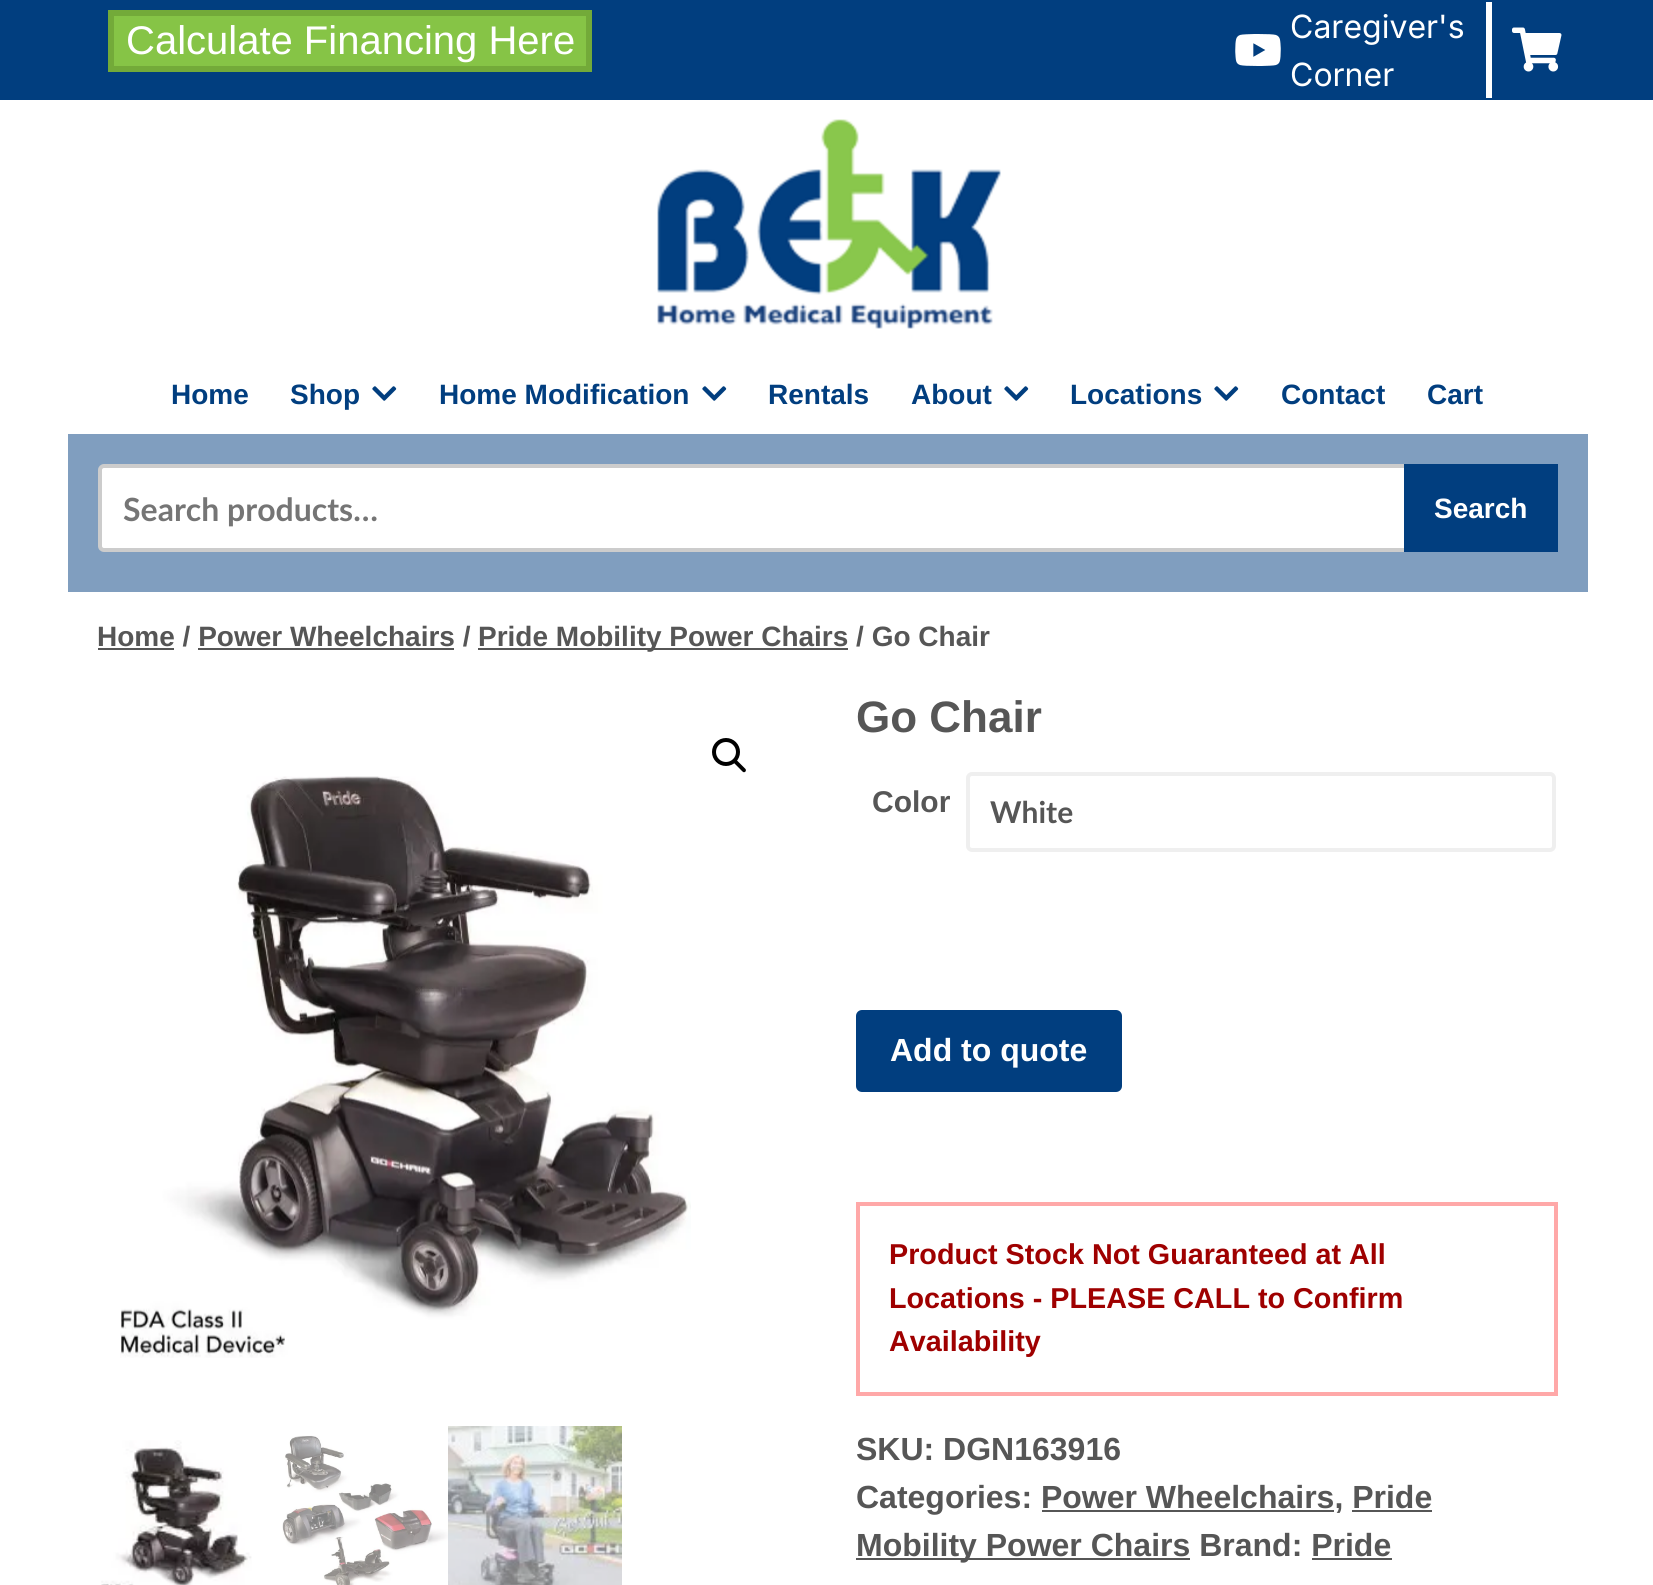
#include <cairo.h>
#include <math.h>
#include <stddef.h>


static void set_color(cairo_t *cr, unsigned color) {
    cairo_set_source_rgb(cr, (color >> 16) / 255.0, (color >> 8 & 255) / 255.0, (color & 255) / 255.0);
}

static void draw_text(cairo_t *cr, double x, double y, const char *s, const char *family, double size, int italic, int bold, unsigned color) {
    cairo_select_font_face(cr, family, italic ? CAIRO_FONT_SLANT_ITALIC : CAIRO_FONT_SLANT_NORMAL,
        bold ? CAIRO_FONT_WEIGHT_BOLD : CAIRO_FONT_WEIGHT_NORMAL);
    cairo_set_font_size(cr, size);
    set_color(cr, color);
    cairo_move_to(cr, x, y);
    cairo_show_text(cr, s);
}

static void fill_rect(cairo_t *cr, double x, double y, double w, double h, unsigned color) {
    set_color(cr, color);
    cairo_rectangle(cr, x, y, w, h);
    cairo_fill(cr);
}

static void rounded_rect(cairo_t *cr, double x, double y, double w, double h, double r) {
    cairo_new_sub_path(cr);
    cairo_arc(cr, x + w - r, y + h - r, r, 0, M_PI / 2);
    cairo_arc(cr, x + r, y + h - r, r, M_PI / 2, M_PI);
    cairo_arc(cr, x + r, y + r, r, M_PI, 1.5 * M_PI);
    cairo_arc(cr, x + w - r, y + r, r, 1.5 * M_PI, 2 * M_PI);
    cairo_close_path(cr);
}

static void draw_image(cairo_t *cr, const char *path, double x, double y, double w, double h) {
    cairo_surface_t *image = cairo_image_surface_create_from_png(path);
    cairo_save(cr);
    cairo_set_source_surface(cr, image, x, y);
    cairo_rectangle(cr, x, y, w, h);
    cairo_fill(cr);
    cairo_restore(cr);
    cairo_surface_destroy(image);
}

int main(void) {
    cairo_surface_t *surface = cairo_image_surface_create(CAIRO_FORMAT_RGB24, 1653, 1585);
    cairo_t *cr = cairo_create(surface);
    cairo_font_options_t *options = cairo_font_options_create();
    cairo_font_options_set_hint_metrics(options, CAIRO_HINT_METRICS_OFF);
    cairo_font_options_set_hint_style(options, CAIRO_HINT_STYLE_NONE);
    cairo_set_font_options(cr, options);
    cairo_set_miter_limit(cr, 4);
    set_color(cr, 0xFFFFFF);
    cairo_paint(cr);
    fill_rect(cr, 0, 0, 1653, 100, 0x013E7F);
    set_color(cr, 0x86C446);
    cairo_rectangle(cr, 111, 13, 478, 56);
    cairo_fill_preserve(cr);
    set_color(cr, 0x73AA39);
    cairo_set_line_width(cr, 6);
    cairo_stroke(cr);
    draw_text(cr, 126, 54, "Calculate Financing Here", "Liberation Sans", 40, 0, 0, 0xFFFFFF);
    fill_rect(cr, 1486, 2, 6, 96, 0xFFFFFF);
    draw_image(cr, "assets/img1.png", 1235, 34, 46, 32);
    draw_text(cr, 1290, 38, "Caregiver's", "Inter", 32, 0, 0, 0xFFFFFF);
    draw_text(cr, 1290, 86, "Corner", "Inter", 32, 0, 0, 0xFFFFFF);
    draw_image(cr, "assets/img2.png", 1512, 27, 50, 45);
    draw_image(cr, "assets/img3.png", 657, 119, 344, 210);
    draw_text(cr, 171, 404, "Home", "Liberation Sans", 28, 0, 1, 0x013E7F);
    draw_text(cr, 290, 404, "Shop", "Liberation Sans", 28, 0, 1, 0x013E7F);
    draw_image(cr, "assets/img4.png", 372, 386, 25, 15);
    draw_text(cr, 439, 404, "Home Modification", "Liberation Sans", 28, 0, 1, 0x013E7F);
    draw_image(cr, "assets/img4.png", 702, 386, 25, 15);
    draw_text(cr, 768, 404, "Rentals", "Liberation Sans", 28, 0, 1, 0x013E7F);
    draw_text(cr, 911, 404, "About", "Liberation Sans", 28, 0, 1, 0x013E7F);
    draw_image(cr, "assets/img4.png", 1004, 386, 25, 15);
    draw_text(cr, 1070, 404, "Locations", "Liberation Sans", 28, 0, 1, 0x013E7F);
    draw_image(cr, "assets/img4.png", 1214, 386, 25, 15);
    draw_text(cr, 1281, 404, "Contact", "Liberation Sans", 28, 0, 1, 0x013E7F);
    draw_text(cr, 1427, 404, "Cart", "Liberation Sans", 28, 0, 1, 0x013E7F);
    fill_rect(cr, 68, 434, 1520, 158, 0x809EBF);
    set_color(cr, 0xFFFFFF);
    rounded_rect(cr, 100, 466, 1448, 84, 4);
    cairo_fill_preserve(cr);
    set_color(cr, 0xCCCCCC);
    cairo_set_line_width(cr, 4);
    cairo_stroke(cr);
    draw_text(cr, 123, 521, "Search products…", "Lato", 32, 0, 1, 0x757575);
    fill_rect(cr, 1404, 464, 154, 88, 0x013E7F);
    draw_text(cr, 1434, 518, "Search", "Liberation Sans", 28, 0, 1, 0xFFFFFF);
    draw_text(cr, 97, 646, "Home / Power Wheelchairs /", "Liberation Sans", 28, 0, 1, 0x565656);
    fill_rect(cr, 98, 648, 76, 2, 0x565656);
    fill_rect(cr, 478, 648, 370, 2, 0x565656);
    draw_text(cr, 478, 646, "Pride Mobility Power Chairs / Go Chair", "Liberation Sans", 28, 0, 1, 0x565656);
    fill_rect(cr, 198, 648, 256, 2, 0x565656);
    cairo_new_path(cr);
    cairo_arc(cr, 726, 752, 12, 0, 2 * M_PI);
    set_color(cr, 0x000000);
    cairo_stroke(cr);
    cairo_new_path(cr);
    cairo_move_to(cr, 734, 760.5);
    cairo_curve_to(cr, 735, 759.5, 736, 759.5, 737, 760.5);
    cairo_line_to(cr, 745.5, 769);
    cairo_curve_to(cr, 746, 769.5, 746, 771, 745.5, 771.5);
    cairo_curve_to(cr, 744.5, 772.5, 743.5, 772.5, 742.5, 771.5);
    cairo_line_to(cr, 734, 763);
    cairo_curve_to(cr, 733.5, 762.5, 733.5, 761, 734, 760.5);
    cairo_close_path(cr);
    cairo_fill(cr);
    draw_image(cr, "assets/img5.png", 120, 776, 571, 582);
    draw_image(cr, "assets/img6.png", 101, 1440, 151, 145);
    draw_image(cr, "assets/img7.png", 282, 1435, 166, 150);
    draw_image(cr, "assets/img8.png", 448, 1426, 174, 159);
    draw_text(cr, 856, 732, "Go Chair", "Liberation Sans", 44, 0, 1, 0x565656);
    draw_text(cr, 872, 812, "Color", "Liberation Sans", 30, 0, 1, 0x565656);
    rounded_rect(cr, 968, 774, 586, 76, 4);
    set_color(cr, 0xEFEFEF);
    cairo_stroke(cr);
    draw_text(cr, 990, 823, "White", "Lato", 30, 0, 1, 0x565656);
    set_color(cr, 0x013E7F);
    rounded_rect(cr, 857, 1011, 264, 80, 5);
    cairo_fill_preserve(cr);
    cairo_set_line_width(cr, 2);
    cairo_stroke(cr);
    draw_text(cr, 890, 1061, "Add to quote", "Liberation Sans", 32, 0, 1, 0xFFFFFF);
    cairo_rectangle(cr, 858, 1204, 698, 190);
    set_color(cr, 0xFFA8A8);
    cairo_set_line_width(cr, 4);
    cairo_stroke(cr);
    draw_text(cr, 889, 1264, "Product Stock Not Guaranteed at All", "Liberation Sans", 28.75, 0, 1, 0x9F0000);
    draw_text(cr, 889, 1308, "Locations - PLEASE CALL to Confirm", "Liberation Sans", 28.75, 0, 1, 0x9F0000);
    draw_text(cr, 889, 1351, "Availability", "Liberation Sans", 28.75, 0, 1, 0x9F0000);
    draw_text(cr, 856, 1460, "SKU: DGN163916", "Liberation Sans", 32, 0, 1, 0x565656);
    draw_text(cr, 856, 1508, "Categories: Power Wheelchairs, Pride", "Liberation Sans", 32, 0, 1, 0x565656);
    fill_rect(cr, 1042, 1510, 292, 2, 0x565656);
    fill_rect(cr, 1352, 1510, 80, 2, 0x565656);
    fill_rect(cr, 856, 1558, 334, 2, 0x565656);
    draw_text(cr, 856, 1556, "Mobility Power Chairs Brand: Pride", "Liberation Sans", 32, 0, 1, 0x565656);
    fill_rect(cr, 1312, 1558, 80, 2, 0x565656);
    cairo_surface_write_to_png(surface, "output.png");
    cairo_font_options_destroy(options);
    cairo_destroy(cr);
    cairo_surface_destroy(surface);
    return 0;
}
